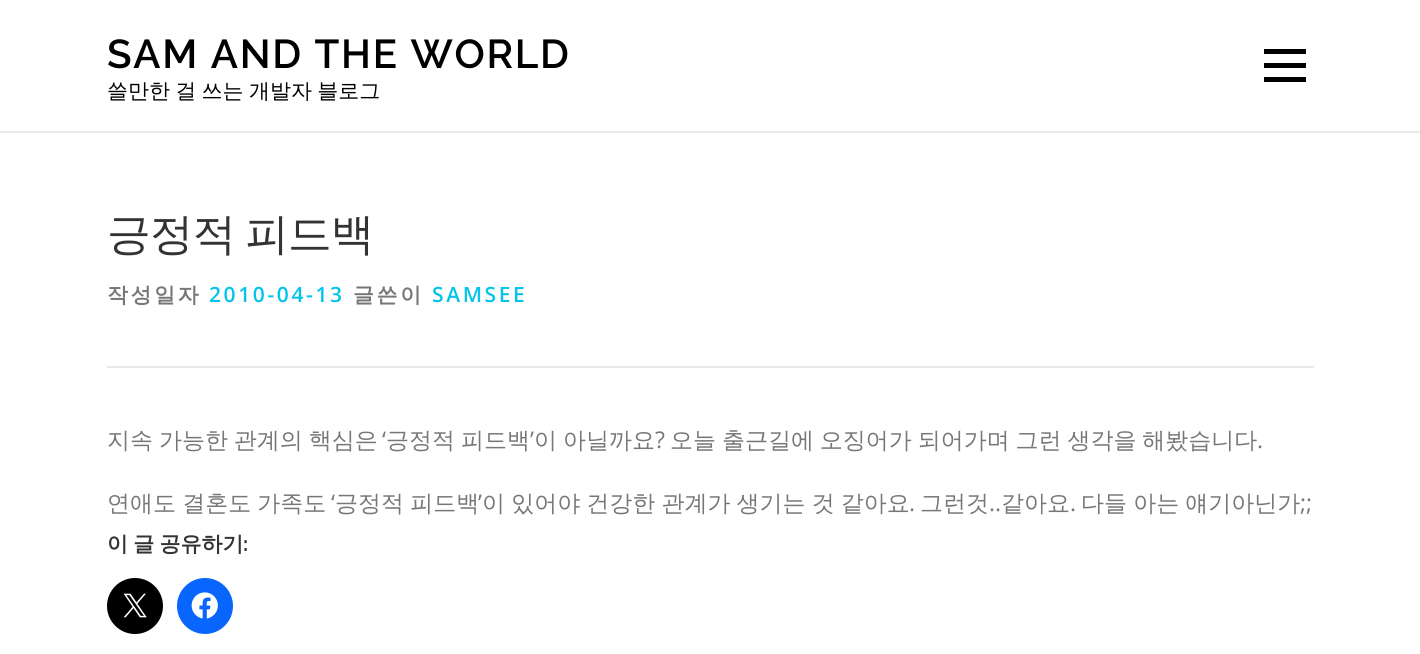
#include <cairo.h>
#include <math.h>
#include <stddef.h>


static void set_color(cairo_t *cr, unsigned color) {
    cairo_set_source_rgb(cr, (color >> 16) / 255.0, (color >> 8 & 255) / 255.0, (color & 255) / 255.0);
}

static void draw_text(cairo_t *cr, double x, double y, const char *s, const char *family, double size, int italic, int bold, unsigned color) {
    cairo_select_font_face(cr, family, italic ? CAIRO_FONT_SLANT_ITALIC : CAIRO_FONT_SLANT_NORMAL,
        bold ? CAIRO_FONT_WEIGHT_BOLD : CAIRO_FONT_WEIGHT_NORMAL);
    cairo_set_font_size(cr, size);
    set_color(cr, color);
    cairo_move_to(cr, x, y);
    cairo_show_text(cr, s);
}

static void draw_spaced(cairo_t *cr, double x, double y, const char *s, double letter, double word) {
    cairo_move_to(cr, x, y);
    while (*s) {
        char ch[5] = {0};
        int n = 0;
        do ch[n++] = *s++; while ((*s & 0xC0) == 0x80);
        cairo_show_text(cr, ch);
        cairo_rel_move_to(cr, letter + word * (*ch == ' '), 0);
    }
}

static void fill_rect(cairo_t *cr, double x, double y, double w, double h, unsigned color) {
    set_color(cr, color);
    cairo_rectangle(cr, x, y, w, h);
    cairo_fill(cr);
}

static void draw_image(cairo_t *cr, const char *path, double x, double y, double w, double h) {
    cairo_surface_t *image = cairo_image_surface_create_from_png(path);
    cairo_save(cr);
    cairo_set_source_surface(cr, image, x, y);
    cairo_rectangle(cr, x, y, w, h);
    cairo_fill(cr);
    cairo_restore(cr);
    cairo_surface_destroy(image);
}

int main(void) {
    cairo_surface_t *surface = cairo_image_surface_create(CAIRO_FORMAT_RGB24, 1420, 654);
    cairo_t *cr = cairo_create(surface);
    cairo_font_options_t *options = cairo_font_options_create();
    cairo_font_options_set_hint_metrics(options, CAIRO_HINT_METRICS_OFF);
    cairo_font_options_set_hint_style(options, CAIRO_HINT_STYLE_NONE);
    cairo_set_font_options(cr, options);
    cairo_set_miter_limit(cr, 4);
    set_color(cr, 0xFFFFFF);
    cairo_paint(cr);
    cairo_select_font_face(cr, "Raleway SemiBold", CAIRO_FONT_SLANT_NORMAL, CAIRO_FONT_WEIGHT_NORMAL);
    cairo_set_font_size(cr, 40.25);
    set_color(cr, 0x000000);
    draw_spaced(cr, 107, 68, "SAM AND THE WORLD", 1.75, 0);
    cairo_select_font_face(cr, "WenQuanYi Zen Hei Medium", CAIRO_FONT_SLANT_NORMAL, CAIRO_FONT_WEIGHT_NORMAL);
    cairo_set_font_size(cr, 21);
    draw_spaced(cr, 107, 98, "쓸만한 걸 쓰는 개발자 블로그", 0, -1);
    fill_rect(cr, 1264, 63, 42, 5, 0x000000);
    fill_rect(cr, 1264, 49, 42, 5, 0x000000);
    fill_rect(cr, 1264, 77, 42, 5, 0x000000);
    fill_rect(cr, 0, 131, 1420, 2, 0xE9E9E9);
    cairo_set_font_size(cr, 43.75);
    set_color(cr, 0x333333);
    draw_spaced(cr, 107, 249, "긍정적 피드백", -1, -2);
    fill_rect(cr, 107, 366, 1207, 2, 0xE9E9E9);
    cairo_select_font_face(cr, "WenQuanYi Zen Hei", CAIRO_FONT_SLANT_NORMAL, CAIRO_FONT_WEIGHT_BOLD);
    cairo_set_font_size(cr, 21);
    set_color(cr, 0x777777);
    draw_spaced(cr, 107, 302, "작성일자", 2.6, 0);
    cairo_select_font_face(cr, "Open Sans SemiBold", CAIRO_FONT_SLANT_NORMAL, CAIRO_FONT_WEIGHT_NORMAL);
    set_color(cr, 0x03C4EB);
    draw_spaced(cr, 209, 302, "2010-04-13", 2.6, 0);
    cairo_select_font_face(cr, "WenQuanYi Zen Hei", CAIRO_FONT_SLANT_NORMAL, CAIRO_FONT_WEIGHT_BOLD);
    set_color(cr, 0x777777);
    draw_spaced(cr, 353, 302, "글쓴이", 2.6, 0);
    cairo_select_font_face(cr, "Open Sans SemiBold", CAIRO_FONT_SLANT_NORMAL, CAIRO_FONT_WEIGHT_NORMAL);
    set_color(cr, 0x03C4EB);
    draw_spaced(cr, 432, 302, "SAMSEE", 2.6, 0);
    cairo_select_font_face(cr, "WenQuanYi Zen Hei Medium", CAIRO_FONT_SLANT_NORMAL, CAIRO_FONT_WEIGHT_NORMAL);
    cairo_set_font_size(cr, 23);
    set_color(cr, 0x777777);
    draw_spaced(cr, 107, 448, "지속 가능한 관계의 핵심은", 0, -1);
    draw_text(cr, 382, 448, "‘", "Open Sans", 23, 0, 0, 0x777777);
    cairo_select_font_face(cr, "WenQuanYi Zen Hei Medium", CAIRO_FONT_SLANT_NORMAL, CAIRO_FONT_WEIGHT_NORMAL);
    draw_spaced(cr, 386, 448, "긍정적 피드백", 0, -1);
    draw_text(cr, 530, 448, "’", "Open Sans", 23, 0, 0, 0x777777);
    cairo_select_font_face(cr, "WenQuanYi Zen Hei Medium", CAIRO_FONT_SLANT_NORMAL, CAIRO_FONT_WEIGHT_NORMAL);
    draw_spaced(cr, 534, 448, "이 아닐까요", 0, -1);
    draw_text(cr, 655, 448, "?", "Open Sans", 23, 0, 0, 0x777777);
    cairo_select_font_face(cr, "WenQuanYi Zen Hei Medium", CAIRO_FONT_SLANT_NORMAL, CAIRO_FONT_WEIGHT_NORMAL);
    draw_spaced(cr, 670, 448, "오늘 출근길에 오징어가 되어가며 그런 생각을 해봤습니다", 0, -1);
    draw_text(cr, 1257, 448, ".", "Open Sans", 23, 0, 0, 0x777777);
    cairo_select_font_face(cr, "WenQuanYi Zen Hei Medium", CAIRO_FONT_SLANT_NORMAL, CAIRO_FONT_WEIGHT_NORMAL);
    draw_spaced(cr, 107, 511, "연애도 결혼도 가족도", 0, -0.75);
    draw_text(cr, 331, 511, "‘", "Open Sans", 23, 0, 0, 0x777777);
    cairo_select_font_face(cr, "WenQuanYi Zen Hei Medium", CAIRO_FONT_SLANT_NORMAL, CAIRO_FONT_WEIGHT_NORMAL);
    draw_spaced(cr, 335, 511, "긍정적 피드백", 0, -0.75);
    draw_text(cr, 478, 511, "’", "Open Sans", 23, 0, 0, 0x777777);
    cairo_select_font_face(cr, "WenQuanYi Zen Hei Medium", CAIRO_FONT_SLANT_NORMAL, CAIRO_FONT_WEIGHT_NORMAL);
    draw_spaced(cr, 482, 511, "이 있어야 건강한 관계가 생기는 것 같아요", 0, -0.75);
    draw_text(cr, 909, 511, ".", "Open Sans", 23, 0, 0, 0x777777);
    draw_text(cr, 920, 511, "그런것", "WenQuanYi Zen Hei Medium", 23, 0, 0, 0x777777);
    draw_text(cr, 989, 511, "..", "Open Sans", 23, 0, 0, 0x777777);
    draw_text(cr, 1001, 511, "같아요", "WenQuanYi Zen Hei Medium", 23, 0, 0, 0x777777);
    draw_text(cr, 1070, 511, ".", "Open Sans", 23, 0, 0, 0x777777);
    cairo_select_font_face(cr, "WenQuanYi Zen Hei Medium", CAIRO_FONT_SLANT_NORMAL, CAIRO_FONT_WEIGHT_NORMAL);
    draw_spaced(cr, 1081, 511, "다들 아는 얘기아닌가", 0, -0.75);
    draw_text(cr, 1300, 511, ";;", "Open Sans", 23, 0, 0, 0x777777);
    cairo_select_font_face(cr, "WenQuanYi Zen Hei", CAIRO_FONT_SLANT_NORMAL, CAIRO_FONT_WEIGHT_BOLD);
    cairo_set_font_size(cr, 21);
    set_color(cr, 0x333333);
    draw_spaced(cr, 107, 551, "이 글 공유하기", 0, -1);
    draw_text(cr, 243, 551, ":", "Raleway", 21, 0, 1, 0x333333);
    set_color(cr, 0x000000);
    cairo_new_path(cr);
    cairo_arc(cr, 135, 606, 28, 0, 2 * M_PI);
    cairo_fill(cr);
    draw_image(cr, "assets/img1.png", 123, 593, 24, 25);
    set_color(cr, 0x0866FF);
    cairo_arc(cr, 205, 606, 28, 0, 2 * M_PI);
    cairo_fill(cr);
    draw_image(cr, "assets/img2.png", 191, 592, 27, 27);
    cairo_surface_write_to_png(surface, "output.png");
    cairo_font_options_destroy(options);
    cairo_destroy(cr);
    cairo_surface_destroy(surface);
    return 0;
}
